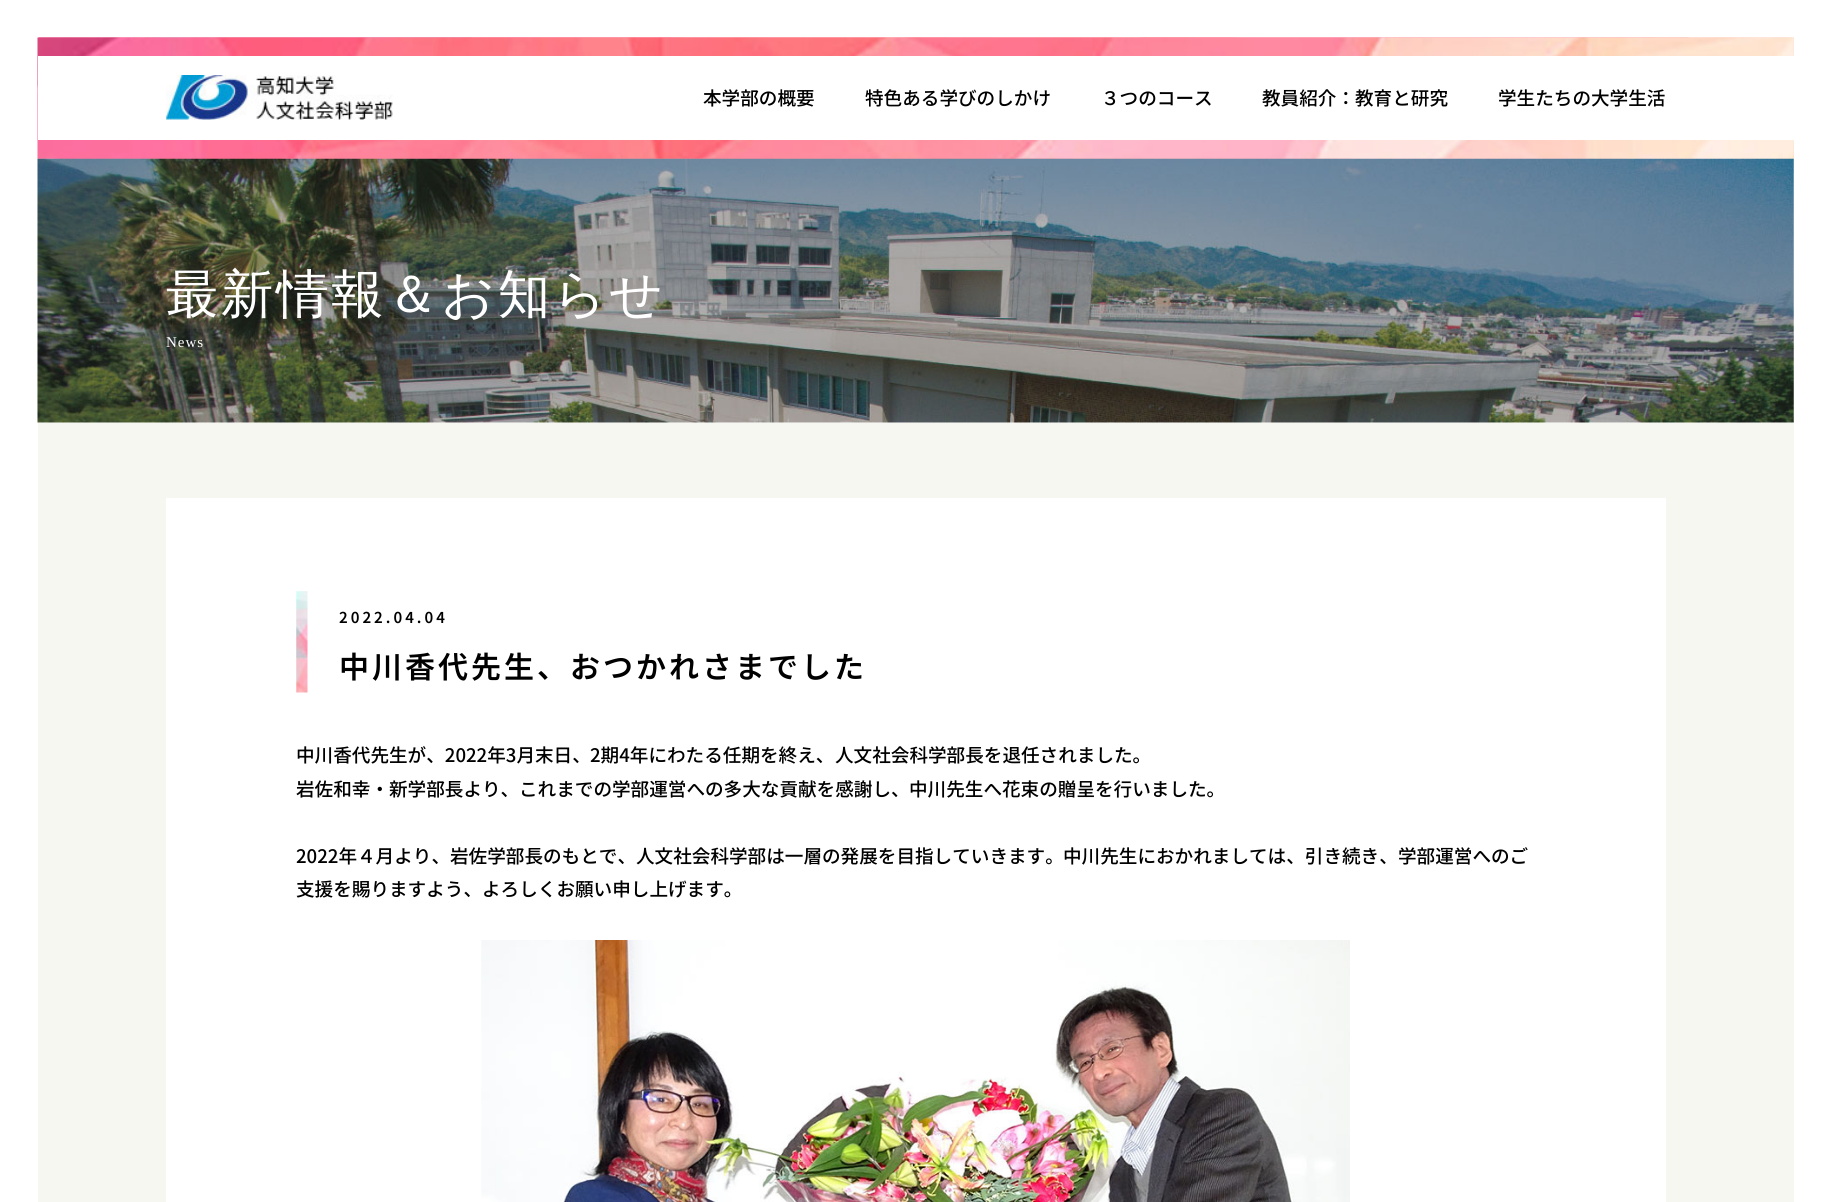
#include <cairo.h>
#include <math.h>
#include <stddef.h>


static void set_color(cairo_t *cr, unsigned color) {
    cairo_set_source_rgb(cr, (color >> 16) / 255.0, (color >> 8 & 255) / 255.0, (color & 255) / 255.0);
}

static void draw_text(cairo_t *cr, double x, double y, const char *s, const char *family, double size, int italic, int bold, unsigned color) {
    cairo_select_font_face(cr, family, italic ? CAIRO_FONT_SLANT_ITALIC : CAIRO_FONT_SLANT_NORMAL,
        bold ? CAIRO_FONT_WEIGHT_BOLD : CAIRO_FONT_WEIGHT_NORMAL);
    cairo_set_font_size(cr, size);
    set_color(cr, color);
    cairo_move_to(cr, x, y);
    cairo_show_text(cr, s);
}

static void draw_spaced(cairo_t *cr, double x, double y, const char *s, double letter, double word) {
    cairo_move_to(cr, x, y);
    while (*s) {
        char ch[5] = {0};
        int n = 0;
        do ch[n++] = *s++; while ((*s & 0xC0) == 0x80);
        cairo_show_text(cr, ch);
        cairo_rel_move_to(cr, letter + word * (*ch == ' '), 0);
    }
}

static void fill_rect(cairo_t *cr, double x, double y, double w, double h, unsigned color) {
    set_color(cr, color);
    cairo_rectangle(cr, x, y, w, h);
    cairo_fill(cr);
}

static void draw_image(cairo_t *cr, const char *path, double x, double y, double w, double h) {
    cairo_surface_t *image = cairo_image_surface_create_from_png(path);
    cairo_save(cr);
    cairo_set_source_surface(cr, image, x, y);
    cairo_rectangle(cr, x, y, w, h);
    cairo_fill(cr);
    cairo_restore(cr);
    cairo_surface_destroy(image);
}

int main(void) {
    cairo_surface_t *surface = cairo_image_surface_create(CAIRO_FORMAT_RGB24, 1831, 1202);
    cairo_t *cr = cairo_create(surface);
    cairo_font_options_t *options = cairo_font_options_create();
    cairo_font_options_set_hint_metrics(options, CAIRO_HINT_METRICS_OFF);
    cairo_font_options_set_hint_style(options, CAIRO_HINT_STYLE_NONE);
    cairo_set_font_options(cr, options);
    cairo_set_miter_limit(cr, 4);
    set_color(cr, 0xFFFFFF);
    cairo_paint(cr);
    draw_image(cr, "assets/img1.png", 37, 37, 1757, 122);
    draw_image(cr, "assets/img2.png", 37, 37, 1757, 122);
    fill_rect(cr, 38, 56, 1756, 84, 0xFFFFFF);
    draw_image(cr, "assets/img3.png", 166, 75, 227, 45);
    draw_text(cr, 703, 105, "本学部の概要", "Noto Sans JP Medium", 18.6, 0, 0, 0x000000);
    draw_text(cr, 865, 105, "特色ある学びのしかけ", "Noto Sans JP Medium", 18.6, 0, 0, 0x000000);
    draw_text(cr, 1101, 105, "３つのコース", "Noto Sans JP Medium", 18.6, 0, 0, 0x000000);
    draw_text(cr, 1262, 105, "教員紹介：教育と研究", "Noto Sans JP Medium", 18.6, 0, 0, 0x000000);
    draw_text(cr, 1498, 105, "学生たちの大学生活", "Noto Sans JP Medium", 18.6, 0, 0, 0x000000);
    draw_image(cr, "assets/img4.png", 37, 158, 1757, 265);
    cairo_select_font_face(cr, "WenQuanYi Zen Hei Medium", CAIRO_FONT_SLANT_NORMAL, CAIRO_FONT_WEIGHT_NORMAL);
    cairo_set_font_size(cr, 52.5);
    set_color(cr, 0xFFFFFF);
    draw_spaced(cr, 166, 312, "最新情報＆お知らせ", 2.6, 0);
    cairo_select_font_face(cr, "Liberation Serif", CAIRO_FONT_SLANT_NORMAL, CAIRO_FONT_WEIGHT_NORMAL);
    cairo_set_font_size(cr, 15);
    draw_spaced(cr, 166, 347, "News", 1, 0);
    fill_rect(cr, 38, 423, 1756, 779, 0xF7F7F2);
    fill_rect(cr, 166, 498, 1500, 704, 0xFFFFFF);
    draw_image(cr, "assets/img5.png", 296, 591, 12, 102);
    cairo_select_font_face(cr, "Noto Sans JP SemiBold", CAIRO_FONT_SLANT_NORMAL, CAIRO_FONT_WEIGHT_NORMAL);
    set_color(cr, 0x000000);
    draw_spaced(cr, 339, 623, "2022.04.04", 3, 0);
    cairo_set_font_size(cr, 30);
    draw_spaced(cr, 339, 678, "中川香代先生、おつかれさまでした", 3, 0);
    draw_text(cr, 296, 762, "中川香代先生が、2022年3月末日、", "Noto Sans JP Medium", 18.6, 0, 0, 0x000000);
    draw_text(cr, 590, 762, "2期4年にわたる任期を終え、", "Noto Sans JP Medium", 18.6, 0, 0, 0x000000);
    draw_text(cr, 835, 762, "人文社会科学部長を退任されました。", "Noto Sans JP Medium", 18.6, 0, 0, 0x000000);
    draw_text(cr, 296, 796, "岩佐和幸・新学部長より、", "Noto Sans JP Medium", 18.6, 0, 0, 0x000000);
    draw_text(cr, 519, 796, "これまでの学部運営への多大な貢献を感謝し、", "Noto Sans JP Medium", 18.6, 0, 0, 0x000000);
    draw_text(cr, 909, 796, "中川先生へ花束の贈呈を行いました。", "Noto Sans JP Medium", 18.6, 0, 0, 0x000000);
    draw_text(cr, 296, 863, "2022年４月より、岩佐学部長のもとで、", "Noto Sans JP Medium", 18.6, 0, 0, 0x000000);
    draw_text(cr, 636, 863, "人文社会科学部は一層の発展を目指していきます。", "Noto Sans JP Medium", 18.6, 0, 0, 0x000000);
    draw_text(cr, 1063, 863, "中川先生におかれましては、引き続き、", "Noto Sans JP Medium", 18.6, 0, 0, 0x000000);
    draw_text(cr, 1398, 863, "学部運営へのご", "Noto Sans JP Medium", 18.6, 0, 0, 0x000000);
    draw_text(cr, 296, 896, "支援を賜りますよう、", "Noto Sans JP Medium", 18.6, 0, 0, 0x000000);
    draw_text(cr, 482, 896, "よろしくお願い申し上げます。", "Noto Sans JP Medium", 18.6, 0, 0, 0x000000);
    draw_image(cr, "assets/img6.png", 481, 940, 869, 262);
    cairo_surface_write_to_png(surface, "output.png");
    cairo_font_options_destroy(options);
    cairo_destroy(cr);
    cairo_surface_destroy(surface);
    return 0;
}
